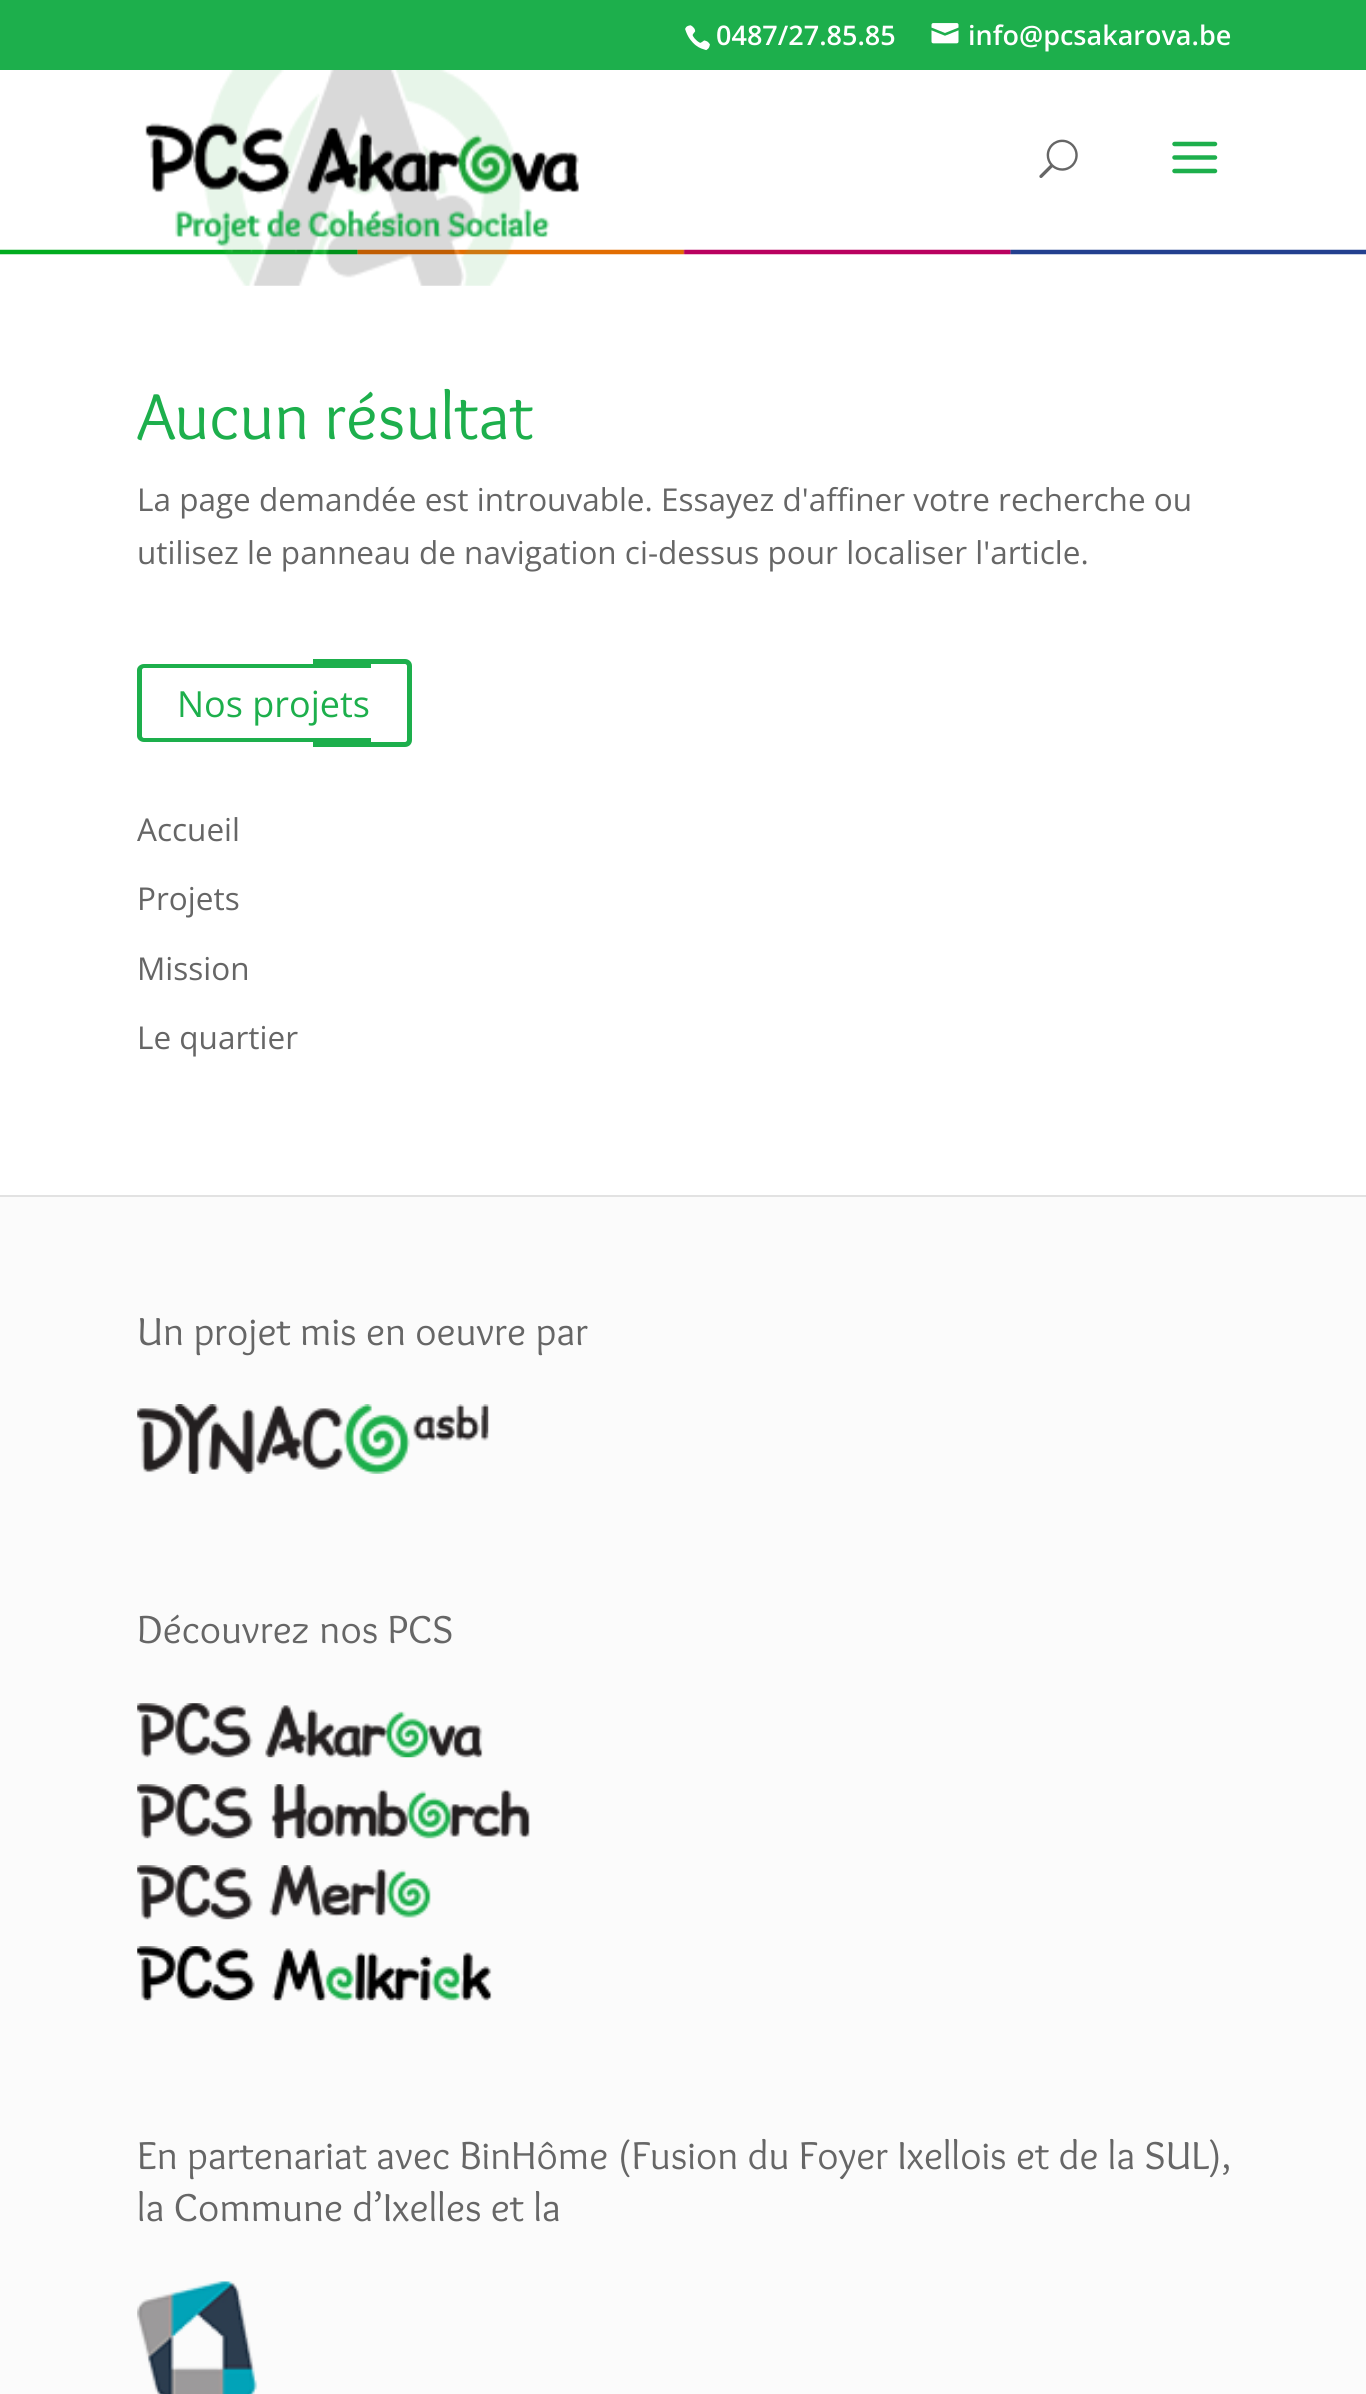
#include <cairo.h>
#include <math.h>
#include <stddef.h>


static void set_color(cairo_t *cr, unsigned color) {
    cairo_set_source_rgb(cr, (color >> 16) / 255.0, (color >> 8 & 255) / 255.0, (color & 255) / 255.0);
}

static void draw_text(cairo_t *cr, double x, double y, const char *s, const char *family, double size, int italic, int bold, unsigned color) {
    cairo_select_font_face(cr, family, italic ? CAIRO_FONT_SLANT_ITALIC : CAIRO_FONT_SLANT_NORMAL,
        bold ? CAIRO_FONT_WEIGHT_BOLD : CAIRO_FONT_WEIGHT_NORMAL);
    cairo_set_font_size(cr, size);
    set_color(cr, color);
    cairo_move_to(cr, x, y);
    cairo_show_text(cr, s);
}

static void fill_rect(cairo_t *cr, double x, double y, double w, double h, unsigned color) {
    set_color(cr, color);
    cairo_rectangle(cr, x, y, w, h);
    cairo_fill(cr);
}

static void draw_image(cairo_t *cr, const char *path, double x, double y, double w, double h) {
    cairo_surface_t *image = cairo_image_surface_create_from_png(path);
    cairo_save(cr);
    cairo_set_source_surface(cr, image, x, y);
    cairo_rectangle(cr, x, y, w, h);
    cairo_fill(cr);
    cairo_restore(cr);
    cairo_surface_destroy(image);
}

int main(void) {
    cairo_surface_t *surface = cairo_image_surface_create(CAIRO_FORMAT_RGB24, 1366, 2394);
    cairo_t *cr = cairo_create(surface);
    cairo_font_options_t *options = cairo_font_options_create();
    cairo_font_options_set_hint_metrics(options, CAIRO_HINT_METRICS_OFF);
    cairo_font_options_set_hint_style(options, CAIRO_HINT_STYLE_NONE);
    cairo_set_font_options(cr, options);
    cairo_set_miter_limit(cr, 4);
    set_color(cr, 0xFFFFFF);
    cairo_paint(cr);
    fill_rect(cr, 0, 0, 1366, 70, 0x1DAF4C);
    draw_image(cr, "assets/img1.png", 685, 25, 25, 26);
    draw_text(cr, 716, 45, "0487/27.85.85", "Open Sans SemiBold", 27, 0, 0, 0xFFFFFF);
    draw_image(cr, "assets/img2.png", 931, 23, 28, 21);
    draw_text(cr, 968, 45, "info@pcsakarova.be", "Open Sans SemiBold", 27, 0, 0, 0xFFFFFF);
    draw_image(cr, "assets/img3.png", 0, 249, 1366, 6);
    draw_image(cr, "assets/img4.png", 145, 70, 434, 216);
    draw_image(cr, "assets/img5.png", 1039, 139, 39, 39);
    draw_image(cr, "assets/img6.png", 1172, 141, 46, 33);
    draw_text(cr, 137, 439, "Aucun résultat", "Overlock", 67.5, 0, 0, 0x1DAF4C);
    draw_text(cr, 137, 511, "La page demandée est introuvable. Essayez d'affiner votre recherche ou", "Open Sans", 31.5, 0, 0, 0x666666);
    draw_text(cr, 137, 564, "utilisez le panneau de navigation ci-dessus pour localiser l'article.", "Open Sans", 31.5, 0, 0, 0x666666);
    set_color(cr, 0x1DAF4C);
    cairo_set_fill_rule(cr, CAIRO_FILL_RULE_EVEN_ODD);
    cairo_new_path(cr);
    cairo_move_to(cr, 144, 664);
    cairo_line_to(cr, 371, 664);
    cairo_line_to(cr, 371, 742);
    cairo_line_to(cr, 144, 742);
    cairo_curve_to(cr, 140, 742, 137, 739, 137, 736);
    cairo_line_to(cr, 137, 670);
    cairo_curve_to(cr, 137, 667, 140, 664, 144, 664);
    cairo_close_path(cr);
    cairo_move_to(cr, 144, 668);
    cairo_line_to(cr, 371, 668);
    cairo_line_to(cr, 371, 738);
    cairo_line_to(cr, 144, 738);
    cairo_curve_to(cr, 143, 738, 142, 737, 142, 736);
    cairo_line_to(cr, 142, 670);
    cairo_curve_to(cr, 142, 669, 143, 668, 144, 668);
    cairo_close_path(cr);
    cairo_fill(cr);
    cairo_new_path(cr);
    cairo_move_to(cr, 313, 659);
    cairo_line_to(cr, 405, 659);
    cairo_curve_to(cr, 409, 659, 412, 662, 412, 666);
    cairo_line_to(cr, 412, 740);
    cairo_curve_to(cr, 412, 744, 409, 747, 405, 747);
    cairo_line_to(cr, 313, 747);
    cairo_close_path(cr);
    cairo_move_to(cr, 313, 664);
    cairo_line_to(cr, 405, 664);
    cairo_curve_to(cr, 406, 664, 407, 665, 407, 666);
    cairo_line_to(cr, 407, 740);
    cairo_curve_to(cr, 407, 741, 406, 742, 405, 742);
    cairo_line_to(cr, 313, 742);
    cairo_close_path(cr);
    cairo_fill(cr);
    draw_text(cr, 177, 717, "Nos projets", "Open Sans", 36, 0, 0, 0x1DAF4C);
    draw_text(cr, 137, 841, "Accueil", "Open Sans", 31.5, 0, 0, 0x666666);
    draw_text(cr, 137, 910, "Projets", "Open Sans", 31.5, 0, 0, 0x666666);
    draw_text(cr, 137, 980, "Mission", "Open Sans", 31.5, 0, 0, 0x666666);
    draw_text(cr, 137, 1049, "Le quartier", "Open Sans", 31.5, 0, 0, 0x666666);
    fill_rect(cr, 0, 1197, 1366, 1197, 0xFBFBFB);
    fill_rect(cr, 0, 1195, 1366, 2, 0xE2E2E2);
    draw_text(cr, 137, 1345, "Un projet mis en oeuvre par", "Overlock", 40.5, 0, 0, 0x666666);
    draw_image(cr, "assets/img7.png", 137, 1404, 352, 70);
    draw_text(cr, 137, 1643, "Découvrez nos PCS", "Overlock", 40.5, 0, 0, 0x666666);
    draw_image(cr, "assets/img8.png", 137, 1703, 346, 55);
    draw_image(cr, "assets/img9.png", 137, 1784, 393, 55);
    draw_image(cr, "assets/img10.png", 137, 1865, 294, 55);
    draw_image(cr, "assets/img11.png", 137, 1946, 355, 55);
    draw_text(cr, 137, 2169, "En partenariat avec BinHôme (Fusion du Foyer Ixellois et de la SUL),", "Overlock", 40.5, 0, 0, 0x666666);
    draw_text(cr, 137, 2221, "la Commune d’Ixelles et la", "Overlock", 40.5, 0, 0, 0x666666);
    draw_image(cr, "assets/img12.png", 137, 2281, 121, 113);
    cairo_surface_write_to_png(surface, "output.png");
    cairo_font_options_destroy(options);
    cairo_destroy(cr);
    cairo_surface_destroy(surface);
    return 0;
}
